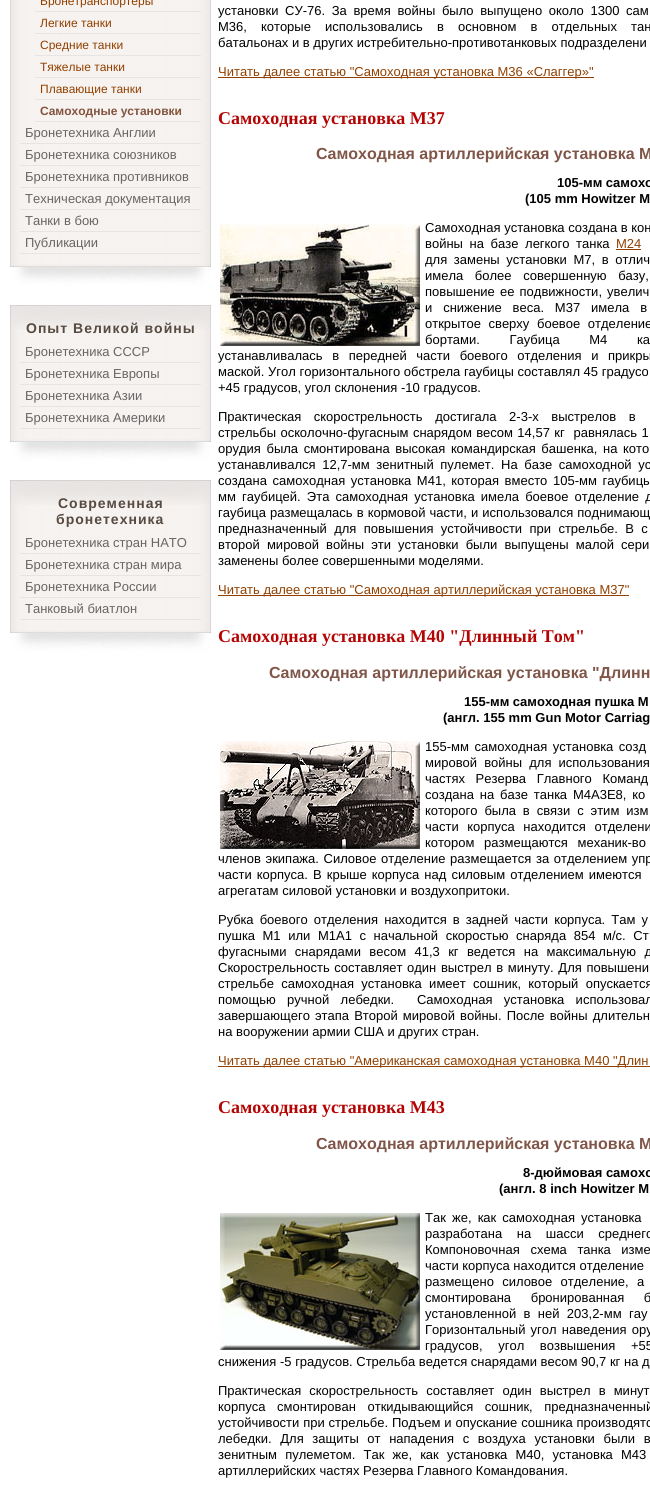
#include <cairo.h>
#include <math.h>
#include <stddef.h>


static void set_color(cairo_t *cr, unsigned color) {
    cairo_set_source_rgb(cr, (color >> 16) / 255.0, (color >> 8 & 255) / 255.0, (color & 255) / 255.0);
}

static void draw_text(cairo_t *cr, double x, double y, const char *s, const char *family, double size, int italic, int bold, unsigned color) {
    cairo_select_font_face(cr, family, italic ? CAIRO_FONT_SLANT_ITALIC : CAIRO_FONT_SLANT_NORMAL,
        bold ? CAIRO_FONT_WEIGHT_BOLD : CAIRO_FONT_WEIGHT_NORMAL);
    cairo_set_font_size(cr, size);
    set_color(cr, color);
    cairo_move_to(cr, x, y);
    cairo_show_text(cr, s);
}

static void draw_spaced(cairo_t *cr, double x, double y, const char *s, double letter, double word) {
    cairo_move_to(cr, x, y);
    while (*s) {
        char ch[5] = {0};
        int n = 0;
        do ch[n++] = *s++; while ((*s & 0xC0) == 0x80);
        cairo_show_text(cr, ch);
        cairo_rel_move_to(cr, letter + word * (*ch == ' '), 0);
    }
}

static void fill_rect(cairo_t *cr, double x, double y, double w, double h, unsigned color) {
    set_color(cr, color);
    cairo_rectangle(cr, x, y, w, h);
    cairo_fill(cr);
}

static void draw_image(cairo_t *cr, const char *path, double x, double y, double w, double h) {
    cairo_surface_t *image = cairo_image_surface_create_from_png(path);
    cairo_save(cr);
    cairo_set_source_surface(cr, image, x, y);
    cairo_rectangle(cr, x, y, w, h);
    cairo_fill(cr);
    cairo_restore(cr);
    cairo_surface_destroy(image);
}

int main(void) {
    cairo_surface_t *surface = cairo_image_surface_create(CAIRO_FORMAT_RGB24, 650, 1492);
    cairo_t *cr = cairo_create(surface);
    cairo_font_options_t *options = cairo_font_options_create();
    cairo_font_options_set_hint_metrics(options, CAIRO_HINT_METRICS_OFF);
    cairo_font_options_set_hint_style(options, CAIRO_HINT_STYLE_NONE);
    cairo_set_font_options(cr, options);
    cairo_set_miter_limit(cr, 4);
    set_color(cr, 0xFFFFFF);
    cairo_paint(cr);
    draw_image(cr, "assets/img1.png", 10, 0, 201, 264);
    draw_image(cr, "assets/img2.png", 10, 264, 201, 31);
    fill_rect(cr, 35, 11, 166, 1, 0xE8E4E1);
    draw_text(cr, 40, 5, "Бронетранспортеры", "Liberation Sans", 12, 0, 0, 0x914000);
    fill_rect(cr, 35, 33, 166, 1, 0xE8E4E1);
    draw_text(cr, 40, 27, "Легкие танки", "Liberation Sans", 12, 0, 0, 0x914000);
    fill_rect(cr, 35, 55, 166, 1, 0xE8E4E1);
    draw_text(cr, 40, 49, "Средние танки", "Liberation Sans", 12, 0, 0, 0x914000);
    fill_rect(cr, 35, 77, 166, 1, 0xE8E4E1);
    draw_text(cr, 40, 71, "Тяжелые танки", "Liberation Sans", 12, 0, 0, 0x914000);
    fill_rect(cr, 35, 99, 166, 1, 0xE8E4E1);
    draw_text(cr, 40, 93, "Плавающие танки", "Liberation Sans", 12, 0, 0, 0x914000);
    fill_rect(cr, 35, 121, 166, 1, 0xE8E4E1);
    draw_text(cr, 40, 115, "Самоходные установки", "Liberation Sans", 12, 0, 1, 0x83543F);
    fill_rect(cr, 20, 143, 181, 1, 0xE8E4E1);
    draw_text(cr, 25, 137, "Бронетехника Англии", "Liberation Sans", 13, 0, 0, 0x666666);
    fill_rect(cr, 20, 165, 181, 1, 0xE8E4E1);
    draw_text(cr, 25, 159, "Бронетехника союзников", "Liberation Sans", 13, 0, 0, 0x666666);
    fill_rect(cr, 20, 187, 181, 1, 0xE8E4E1);
    draw_text(cr, 25, 181, "Бронетехника противников", "Liberation Sans", 13, 0, 0, 0x666666);
    fill_rect(cr, 20, 209, 181, 1, 0xE8E4E1);
    draw_text(cr, 25, 203, "Техническая документация", "Liberation Sans", 13, 0, 0, 0x666666);
    fill_rect(cr, 20, 231, 181, 1, 0xE8E4E1);
    draw_text(cr, 25, 225, "Танки в бою", "Liberation Sans", 13, 0, 0, 0x666666);
    fill_rect(cr, 20, 253, 181, 1, 0xE8E4E1);
    draw_text(cr, 25, 247, "Публикации", "Liberation Sans", 13, 0, 0, 0x666666);
    draw_image(cr, "assets/img3.png", 10, 330, 201, 109);
    draw_image(cr, "assets/img2.png", 10, 439, 201, 31);
    draw_image(cr, "assets/img4.png", 10, 305, 201, 25);
    cairo_select_font_face(cr, "Liberation Sans", CAIRO_FONT_SLANT_NORMAL, CAIRO_FONT_WEIGHT_BOLD);
    cairo_set_font_size(cr, 14);
    set_color(cr, 0x564A41);
    draw_spaced(cr, 26, 333, "Опыт Великой войны", 1, 0);
    fill_rect(cr, 20, 362, 181, 1, 0xE8E4E1);
    draw_text(cr, 25, 356, "Бронетехника СССР", "Liberation Sans", 13, 0, 0, 0x666666);
    fill_rect(cr, 20, 384, 181, 1, 0xE8E4E1);
    draw_text(cr, 25, 378, "Бронетехника Европы", "Liberation Sans", 13, 0, 0, 0x666666);
    fill_rect(cr, 20, 406, 181, 1, 0xE8E4E1);
    draw_text(cr, 25, 400, "Бронетехника Азии", "Liberation Sans", 13, 0, 0, 0x666666);
    fill_rect(cr, 20, 428, 181, 1, 0xE8E4E1);
    draw_text(cr, 25, 422, "Бронетехника Америки", "Liberation Sans", 13, 0, 0, 0x666666);
    draw_image(cr, "assets/img5.png", 10, 505, 201, 125);
    draw_image(cr, "assets/img2.png", 10, 630, 201, 31);
    draw_image(cr, "assets/img4.png", 10, 480, 201, 25);
    cairo_select_font_face(cr, "Liberation Sans", CAIRO_FONT_SLANT_NORMAL, CAIRO_FONT_WEIGHT_BOLD);
    cairo_set_font_size(cr, 14);
    set_color(cr, 0x564A41);
    draw_spaced(cr, 58, 508, "Современная", 1, 0);
    draw_spaced(cr, 56, 524, "бронетехника", 1, 0);
    fill_rect(cr, 20, 553, 181, 1, 0xE8E4E1);
    draw_text(cr, 25, 547, "Бронетехника стран НАТО", "Liberation Sans", 13, 0, 0, 0x666666);
    fill_rect(cr, 20, 575, 181, 1, 0xE8E4E1);
    draw_text(cr, 25, 569, "Бронетехника стран мира", "Liberation Sans", 13, 0, 0, 0x666666);
    fill_rect(cr, 20, 597, 181, 1, 0xE8E4E1);
    draw_text(cr, 25, 591, "Бронетехника России", "Liberation Sans", 13, 0, 0, 0x666666);
    fill_rect(cr, 20, 619, 181, 1, 0xE8E4E1);
    draw_text(cr, 25, 613, "Танковый биатлон", "Liberation Sans", 13, 0, 0, 0x666666);
    set_color(cr, 0x000000);
    draw_spaced(cr, 218, 15, "установки СУ-76. За время войны было выпущено около 1300 сам", 0, 3);
    draw_spaced(cr, 218, 31, "М36, которые использовались в основном в отдельных тан", 0, 10.5);
    draw_text(cr, 218, 47, "батальонах и в других истребительно-противотанковых подразделени", "Liberation Sans", 13, 0, 0, 0x000000);
    fill_rect(cr, 218, 77, 376, 1, 0x914000);
    draw_text(cr, 218, 76, "Читать далее статью \"Самоходная установка М36 «Слаггер»\"", "Liberation Sans", 13, 0, 0, 0x914000);
    draw_text(cr, 218, 124, "Самоходная установка М37", "Liberation Serif", 18, 0, 1, 0xB50404);
    draw_text(cr, 316, 159, "Самоходная артиллерийская установка М", "Liberation Sans", 16, 0, 1, 0x805649);
    draw_text(cr, 557, 187, "105-мм самохо", "Liberation Sans", 13, 0, 1, 0x000000);
    draw_text(cr, 525, 203, "(105 mm Howitzer M", "Liberation Sans", 13, 0, 1, 0x000000);
    draw_image(cr, "assets/img6.png", 220, 224, 200, 122);
    draw_text(cr, 425, 232, "Самоходная установка создана в кон", "Liberation Sans", 13, 0, 0, 0x000000);
    draw_spaced(cr, 425, 248, "войны на базе легкого танка", 0, 3);
    draw_text(cr, 616, 248, "М24", "Liberation Sans", 13, 0, 0, 0x914000);
    fill_rect(cr, 616, 249, 25, 1, 0x914000);
    set_color(cr, 0x000000);
    draw_spaced(cr, 425, 264, "для замены установки М7, в отлич", 0, 3);
    draw_spaced(cr, 425, 280, "имела более совершенную базу,", 0, 8);
    draw_spaced(cr, 425, 296, "повышение ее подвижности, увелич", 0, 1.5);
    draw_spaced(cr, 425, 312, "и снижение веса. М37 имела в", 0, 7.25);
    draw_spaced(cr, 425, 328, "открытое сверху боевое отделение", 0, 4);
    draw_spaced(cr, 425, 344, "бортами. Гаубица М4 ка", 0, 26);
    draw_spaced(cr, 218, 360, "устанавливалась в передней части боевого отделения и прикры", 0, 6);
    draw_text(cr, 218, 376, "маской. Угол горизонтального обстрела гаубицы составлял 45 градусо", "Liberation Sans", 13, 0, 0, 0x000000);
    draw_text(cr, 218, 392, "+45 градусов, угол склонения -10 градусов.", "Liberation Sans", 13, 0, 0, 0x000000);
    draw_spaced(cr, 218, 421, "Практическая скорострельность достигала 2-3-х выстрелов в", 0, 9);
    draw_spaced(cr, 218, 437, "стрельбы осколочно-фугасным снарядом весом 14,57 кг  равнялась 1", 0, 0.75);
    draw_spaced(cr, 218, 453, "орудия была смонтирована высокая командирская башенка, на кото", 0, 2);
    draw_spaced(cr, 218, 469, "устанавливался 12,7-мм зенитный пулемет. На базе самоходной ус", 0, 3);
    draw_spaced(cr, 218, 485, "создана самоходная установка М41, которая вместо 105-мм гаубицы", 0, 2);
    draw_spaced(cr, 218, 501, "мм гаубицей. Эта самоходная установка имела боевое отделение д", 0, 2.5);
    draw_spaced(cr, 218, 517, "гаубица размещалась в кормовой части, и использовался поднимающ", 0, 0.5);
    draw_spaced(cr, 218, 533, "предназначенный для повышения устойчивости при стрельбе. В с", 0, 3.75);
    draw_spaced(cr, 218, 549, "второй мировой войны эти установки были выпущены малой сери", 0, 3.5);
    draw_text(cr, 218, 565, "заменены более совершенными моделями.", "Liberation Sans", 13, 0, 0, 0x000000);
    fill_rect(cr, 218, 595, 411, 1, 0x914000);
    draw_text(cr, 218, 594, "Читать далее статью \"Самоходная артиллерийская установка М37\"", "Liberation Sans", 13, 0, 0, 0x914000);
    draw_text(cr, 218, 642, "Самоходная установка М40 \"Длинный Том\"", "Liberation Serif", 18, 0, 1, 0xB50404);
    draw_text(cr, 269, 678, "Самоходная артиллерийская установка \"Длинн", "Liberation Sans", 16, 0, 1, 0x805649);
    draw_text(cr, 464, 706, "155-мм самоходная пушка M", "Liberation Sans", 13, 0, 1, 0x000000);
    draw_text(cr, 443, 722, "(англ. 155 mm Gun Motor Carriag", "Liberation Sans", 13, 0, 1, 0x000000);
    draw_image(cr, "assets/img7.png", 220, 741, 200, 108);
    cairo_select_font_face(cr, "Liberation Sans", CAIRO_FONT_SLANT_NORMAL, CAIRO_FONT_WEIGHT_NORMAL);
    draw_spaced(cr, 425, 751, "155-мм самоходная установка созд", 0, 2);
    draw_spaced(cr, 425, 767, "мировой войны для использования", 0, 3.5);
    draw_spaced(cr, 425, 783, "частях Резерва Главного Команд", 0, 7);
    draw_spaced(cr, 425, 799, "создана на базе танка М4А3Е8, ко", 0, 2.25);
    draw_spaced(cr, 425, 815, "которого была в связи с этим изм", 0, 3.25);
    draw_spaced(cr, 425, 831, "части корпуса находится отделени", 0, 5);
    draw_spaced(cr, 425, 847, "котором размещаются механик-во", 0, 6);
    draw_spaced(cr, 218, 863, "членов экипажа. Силовое отделение размещается за отделением упр", 0, 1);
    draw_spaced(cr, 218, 879, "части корпуса. В крыше корпуса над силовым отделением имеются", 0, 1.5);
    draw_text(cr, 218, 895, "агрегатам силовой установки и воздухопритоки.", "Liberation Sans", 13, 0, 0, 0x000000);
    draw_spaced(cr, 218, 924, "Рубка боевого отделения находится в задней части корпуса. Там у", 0, 2.5);
    draw_spaced(cr, 218, 940, "пушка М1 или М1А1 с начальной скоростью снаряда 854 м/с. Ст", 0, 4);
    draw_spaced(cr, 218, 956, "фугасными снарядами весом 41,3 кг ведется на максимальную д", 0, 4.75);
    draw_spaced(cr, 218, 972, "Скорострельность составляет один выстрел в минуту. Для повышени", 0, 1);
    draw_spaced(cr, 218, 988, "стрельбе самоходная установка имеет сошник, который опускается", 0, 3.75);
    draw_spaced(cr, 218, 1004, "помощью ручной лебедки.  Самоходная установка использовал", 0, 7.75);
    draw_spaced(cr, 218, 1020, "завершающего этапа Второй мировой войны. После войны длительн", 0, 1.5);
    draw_text(cr, 218, 1036, "на вооружении армии США и других стран.", "Liberation Sans", 13, 0, 0, 0x000000);
    fill_rect(cr, 218, 1066, 432, 1, 0x914000);
    draw_text(cr, 218, 1065, "Читать далее статью \"Американская самоходная установка M40 \"Длин", "Liberation Sans", 13, 0, 0, 0x914000);
    draw_text(cr, 218, 1113, "Самоходная установка М43", "Liberation Serif", 18, 0, 1, 0xB50404);
    draw_text(cr, 316, 1149, "Самоходная артиллерийская установка М", "Liberation Sans", 16, 0, 1, 0x805649);
    draw_text(cr, 523, 1177, "8-дюймовая самохо", "Liberation Sans", 13, 0, 1, 0x000000);
    draw_text(cr, 499, 1193, "(англ. 8 inch Howitzer M", "Liberation Sans", 13, 0, 1, 0x000000);
    draw_image(cr, "assets/img8.png", 220, 1213, 200, 137);
    cairo_select_font_face(cr, "Liberation Sans", CAIRO_FONT_SLANT_NORMAL, CAIRO_FONT_WEIGHT_NORMAL);
    draw_spaced(cr, 425, 1222, "Так же, как самоходная установка", 0, 2.5);
    draw_spaced(cr, 425, 1238, "разработана на шасси среднего", 0, 11);
    draw_spaced(cr, 425, 1254, "Компоновочная схема танка изме", 0, 7);
    draw_text(cr, 425, 1270, "части корпуса находится отделение", "Liberation Sans", 13, 0, 0, 0x000000);
    draw_spaced(cr, 425, 1286, "размещено силовое отделение, а", 0, 4.75);
    draw_spaced(cr, 425, 1302, "смонтирована бронированная б", 0, 16);
    draw_spaced(cr, 425, 1318, "установленной в ней 203,2-мм гау", 0, 3.75);
    draw_spaced(cr, 425, 1334, "Горизонтальный угол наведения ору", 0, 1.5);
    draw_spaced(cr, 425, 1350, "градусов, угол возвышения +55", 0, 12);
    draw_text(cr, 218, 1366, "снижения -5 градусов. Стрельба ведется снарядами весом 90,7 кг на д", "Liberation Sans", 13, 0, 0, 0x000000);
    draw_spaced(cr, 218, 1395, "Практическая скорострельность составляет один выстрел в минут", 0, 4.5);
    draw_spaced(cr, 218, 1411, "корпуса смонтирован откидывающийся сошник, предназначенный", 0, 8);
    draw_spaced(cr, 218, 1427, "устойчивости при стрельбе. Подъем и опускание сошника производятс", 0, 0.25);
    draw_spaced(cr, 218, 1443, "лебедки. Для защиты от нападения с воздуха установки были в", 0, 5);
    draw_spaced(cr, 218, 1459, "зенитным пулеметом. Так же, как установка М40, установка М43", 0, 4.5);
    draw_text(cr, 218, 1475, "артиллерийских частях Резерва Главного Командования.", "Liberation Sans", 13, 0, 0, 0x000000);
    cairo_surface_write_to_png(surface, "output.png");
    cairo_font_options_destroy(options);
    cairo_destroy(cr);
    cairo_surface_destroy(surface);
    return 0;
}
